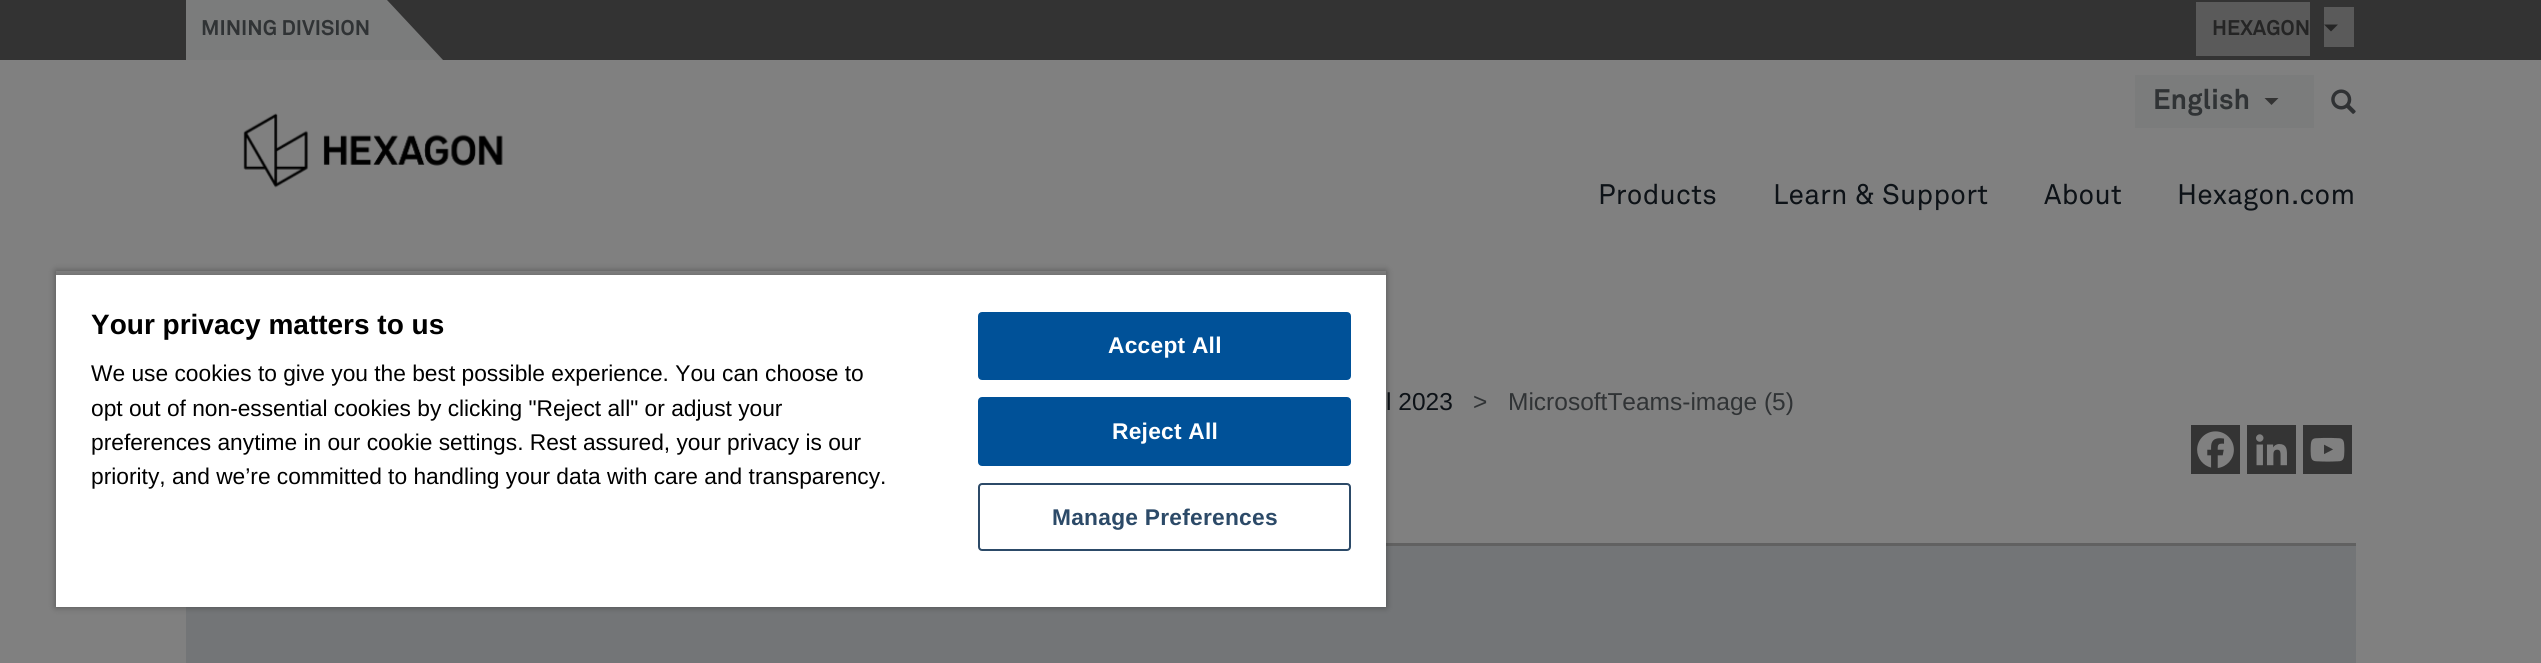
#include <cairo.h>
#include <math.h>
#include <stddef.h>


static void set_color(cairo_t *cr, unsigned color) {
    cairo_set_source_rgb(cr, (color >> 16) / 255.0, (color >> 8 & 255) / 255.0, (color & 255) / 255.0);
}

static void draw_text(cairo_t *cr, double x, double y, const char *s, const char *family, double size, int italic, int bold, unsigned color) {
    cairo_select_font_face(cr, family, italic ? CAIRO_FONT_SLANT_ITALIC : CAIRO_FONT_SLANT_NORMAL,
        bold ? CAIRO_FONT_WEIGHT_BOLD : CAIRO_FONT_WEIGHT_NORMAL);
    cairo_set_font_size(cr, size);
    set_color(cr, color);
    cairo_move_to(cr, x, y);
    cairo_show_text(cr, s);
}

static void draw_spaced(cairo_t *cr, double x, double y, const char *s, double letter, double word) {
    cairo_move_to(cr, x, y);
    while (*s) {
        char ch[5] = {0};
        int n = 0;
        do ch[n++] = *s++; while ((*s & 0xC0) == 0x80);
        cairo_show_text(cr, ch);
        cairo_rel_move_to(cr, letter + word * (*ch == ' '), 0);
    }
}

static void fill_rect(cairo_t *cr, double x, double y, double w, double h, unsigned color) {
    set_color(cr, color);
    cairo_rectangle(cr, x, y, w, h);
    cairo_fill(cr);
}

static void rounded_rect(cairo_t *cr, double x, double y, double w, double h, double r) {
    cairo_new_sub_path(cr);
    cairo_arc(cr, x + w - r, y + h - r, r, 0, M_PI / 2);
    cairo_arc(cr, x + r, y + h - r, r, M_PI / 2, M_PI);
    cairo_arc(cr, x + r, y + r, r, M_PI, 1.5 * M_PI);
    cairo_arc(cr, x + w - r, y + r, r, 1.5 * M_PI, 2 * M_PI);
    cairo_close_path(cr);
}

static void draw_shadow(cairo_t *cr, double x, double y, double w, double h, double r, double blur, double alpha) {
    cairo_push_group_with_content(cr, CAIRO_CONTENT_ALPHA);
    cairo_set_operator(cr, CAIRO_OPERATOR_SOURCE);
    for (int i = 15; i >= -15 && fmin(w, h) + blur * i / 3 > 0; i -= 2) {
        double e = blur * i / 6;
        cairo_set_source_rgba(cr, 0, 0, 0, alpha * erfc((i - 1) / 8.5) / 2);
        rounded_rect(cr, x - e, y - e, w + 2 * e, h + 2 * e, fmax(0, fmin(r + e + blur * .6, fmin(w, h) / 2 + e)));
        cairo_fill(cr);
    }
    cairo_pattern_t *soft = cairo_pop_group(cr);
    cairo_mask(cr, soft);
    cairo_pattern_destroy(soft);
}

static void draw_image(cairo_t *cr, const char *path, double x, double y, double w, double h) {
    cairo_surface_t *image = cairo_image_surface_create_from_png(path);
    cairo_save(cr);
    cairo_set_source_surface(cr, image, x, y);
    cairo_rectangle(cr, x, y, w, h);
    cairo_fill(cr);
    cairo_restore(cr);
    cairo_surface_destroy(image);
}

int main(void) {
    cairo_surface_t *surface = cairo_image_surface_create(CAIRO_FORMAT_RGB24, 2541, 663);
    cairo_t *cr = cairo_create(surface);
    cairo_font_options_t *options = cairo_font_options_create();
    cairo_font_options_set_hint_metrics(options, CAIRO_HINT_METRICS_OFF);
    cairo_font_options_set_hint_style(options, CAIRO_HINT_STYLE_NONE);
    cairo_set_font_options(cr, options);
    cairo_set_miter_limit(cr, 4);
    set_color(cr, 0x808080);
    cairo_paint(cr);
    fill_rect(cr, 0, 0, 2541, 60, 0x333333);
    fill_rect(cr, 186, 0, 201, 60, 0x7B7C7C);
    draw_text(cr, 201, 35, "MINING DIVISION", "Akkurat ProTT", 21, 0, 1, 0x303335);
    set_color(cr, 0x7B7C7C);
    cairo_new_path(cr);
    cairo_move_to(cr, 443, 60);
    cairo_line_to(cr, 387, 60);
    cairo_line_to(cr, 387, 0);
    cairo_close_path(cr);
    cairo_fill(cr);
    fill_rect(cr, 2196, 2, 114, 54, 0x5A5A5A);
    fill_rect(cr, 2324, 7, 30, 40, 0x5A5A5A);
    draw_text(cr, 2212, 35, "HEXAGON", "Akkurat ProTT", 21, 0, 1, 0x252525);
    cairo_new_path(cr);
    cairo_move_to(cr, 2324, 24.5);
    cairo_line_to(cr, 2338, 24.5);
    cairo_line_to(cr, 2331, 31.5);
    cairo_close_path(cr);
    cairo_fill(cr);
    draw_image(cr, "assets/img1.png", 243, 113, 260, 75);
    fill_rect(cr, 2135, 75, 179, 53, 0x7B7C7C);
    draw_text(cr, 2153, 109, "English", "Akkurat ProTT", 28, 0, 1, 0x303335);
    set_color(cr, 0x333333);
    cairo_new_path(cr);
    cairo_move_to(cr, 2264.5, 98);
    cairo_line_to(cr, 2278.5, 98);
    cairo_line_to(cr, 2271.5, 105);
    cairo_close_path(cr);
    cairo_fill(cr);
    draw_image(cr, "assets/img2.png", 2331, 89, 25, 25);
    cairo_select_font_face(cr, "Akkurat ProTT", CAIRO_FONT_SLANT_NORMAL, CAIRO_FONT_WEIGHT_NORMAL);
    set_color(cr, 0x0D1217);
    draw_spaced(cr, 1598, 204, "Products", 0.25, 0);
    draw_spaced(cr, 1773, 204, "Learn & Support", 0.25, 0);
    draw_spaced(cr, 2044, 204, "About", 0.25, 0);
    draw_spaced(cr, 2177, 204, "Hexagon.com", 0.25, 0);
    draw_text(cr, 1386, 410, "l 2023", "Liberation Sans", 24.5, 0, 0, 0x0D1217);
    draw_text(cr, 1473, 410, ">", "Liberation Sans", 24.5, 0, 0, 0x303335);
    draw_text(cr, 1508, 410, "MicrosoftTeams-image (5)", "Liberation Sans", 24.5, 0, 0, 0x303335);
    fill_rect(cr, 2191, 425, 49, 49, 0x343434);
    draw_image(cr, "assets/img3.png", 2197, 431, 37, 37);
    fill_rect(cr, 2247, 425, 49, 49, 0x343434);
    draw_image(cr, "assets/img4.png", 2256, 434, 31, 32);
    fill_rect(cr, 2303, 425, 49, 49, 0x343434);
    draw_image(cr, "assets/img5.png", 2310, 437, 35, 25);
    fill_rect(cr, 1386, 543, 970, 3, 0x616161);
    fill_rect(cr, 186, 546, 2170, 117, 0x737577);
    cairo_save(cr);
    cairo_set_fill_rule(cr, CAIRO_FILL_RULE_EVEN_ODD);
    cairo_new_path(cr);
    cairo_move_to(cr, 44, 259);
    cairo_line_to(cr, 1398, 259);
    cairo_line_to(cr, 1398, 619);
    cairo_line_to(cr, 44, 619);
    cairo_close_path(cr);
    cairo_move_to(cr, 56, 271);
    cairo_line_to(cr, 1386, 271);
    cairo_line_to(cr, 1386, 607);
    cairo_line_to(cr, 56, 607);
    cairo_close_path(cr);
    cairo_clip(cr);
    set_color(cr, 0x000000);
    draw_shadow(cr, 56, 271, 1330, 336, 0, 3.5, 0.35);
    cairo_restore(cr);
    cairo_save(cr);
    cairo_rectangle(cr, 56, 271, 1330, 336);
    cairo_clip(cr);
    set_color(cr, 0x000000);
    draw_shadow(cr, 56, 275, 1330, 332, 0, 3.5, 0.2);
    cairo_restore(cr);
    fill_rect(cr, 56, 275, 1330, 332, 0xFFFFFF);
    draw_text(cr, 91, 334, "Your privacy matters to us", "Liberation Sans", 28, 0, 1, 0x000000);
    draw_text(cr, 91, 381, "We use cookies to give you the best possible experience. You can choose to", "Liberation Sans", 22.75, 0, 0, 0x000000);
    draw_text(cr, 91, 416, "opt out of non-essential cookies by clicking \"Reject all\" or adjust your", "Liberation Sans", 22.75, 0, 0, 0x000000);
    draw_text(cr, 91, 450, "preferences anytime in our cookie settings. Rest assured, your privacy is our", "Liberation Sans", 22.75, 0, 0, 0x000000);
    draw_text(cr, 91, 484, "priority, and we’re committed to handling your data with care and transparency.", "Liberation Sans", 22.75, 0, 0, 0x000000);
    set_color(cr, 0x005198);
    rounded_rect(cr, 979, 313, 371, 66, 3);
    cairo_fill_preserve(cr);
    cairo_stroke(cr);
    cairo_select_font_face(cr, "Liberation Sans", CAIRO_FONT_SLANT_NORMAL, CAIRO_FONT_WEIGHT_BOLD);
    set_color(cr, 0xFFFFFF);
    draw_spaced(cr, 1108, 353, "Accept All", 0.25, 0);
    set_color(cr, 0x005198);
    rounded_rect(cr, 979, 398, 371, 67, 3);
    cairo_fill_preserve(cr);
    cairo_stroke(cr);
    set_color(cr, 0xFFFFFF);
    draw_spaced(cr, 1112, 439, "Reject All", 0.25, 0);
    rounded_rect(cr, 979, 484, 371, 66, 3);
    set_color(cr, 0x2C4A68);
    cairo_stroke(cr);
    draw_spaced(cr, 1052, 525, "Manage Preferences", 0.25, 0);
    cairo_surface_write_to_png(surface, "output.png");
    cairo_font_options_destroy(options);
    cairo_destroy(cr);
    cairo_surface_destroy(surface);
    return 0;
}
